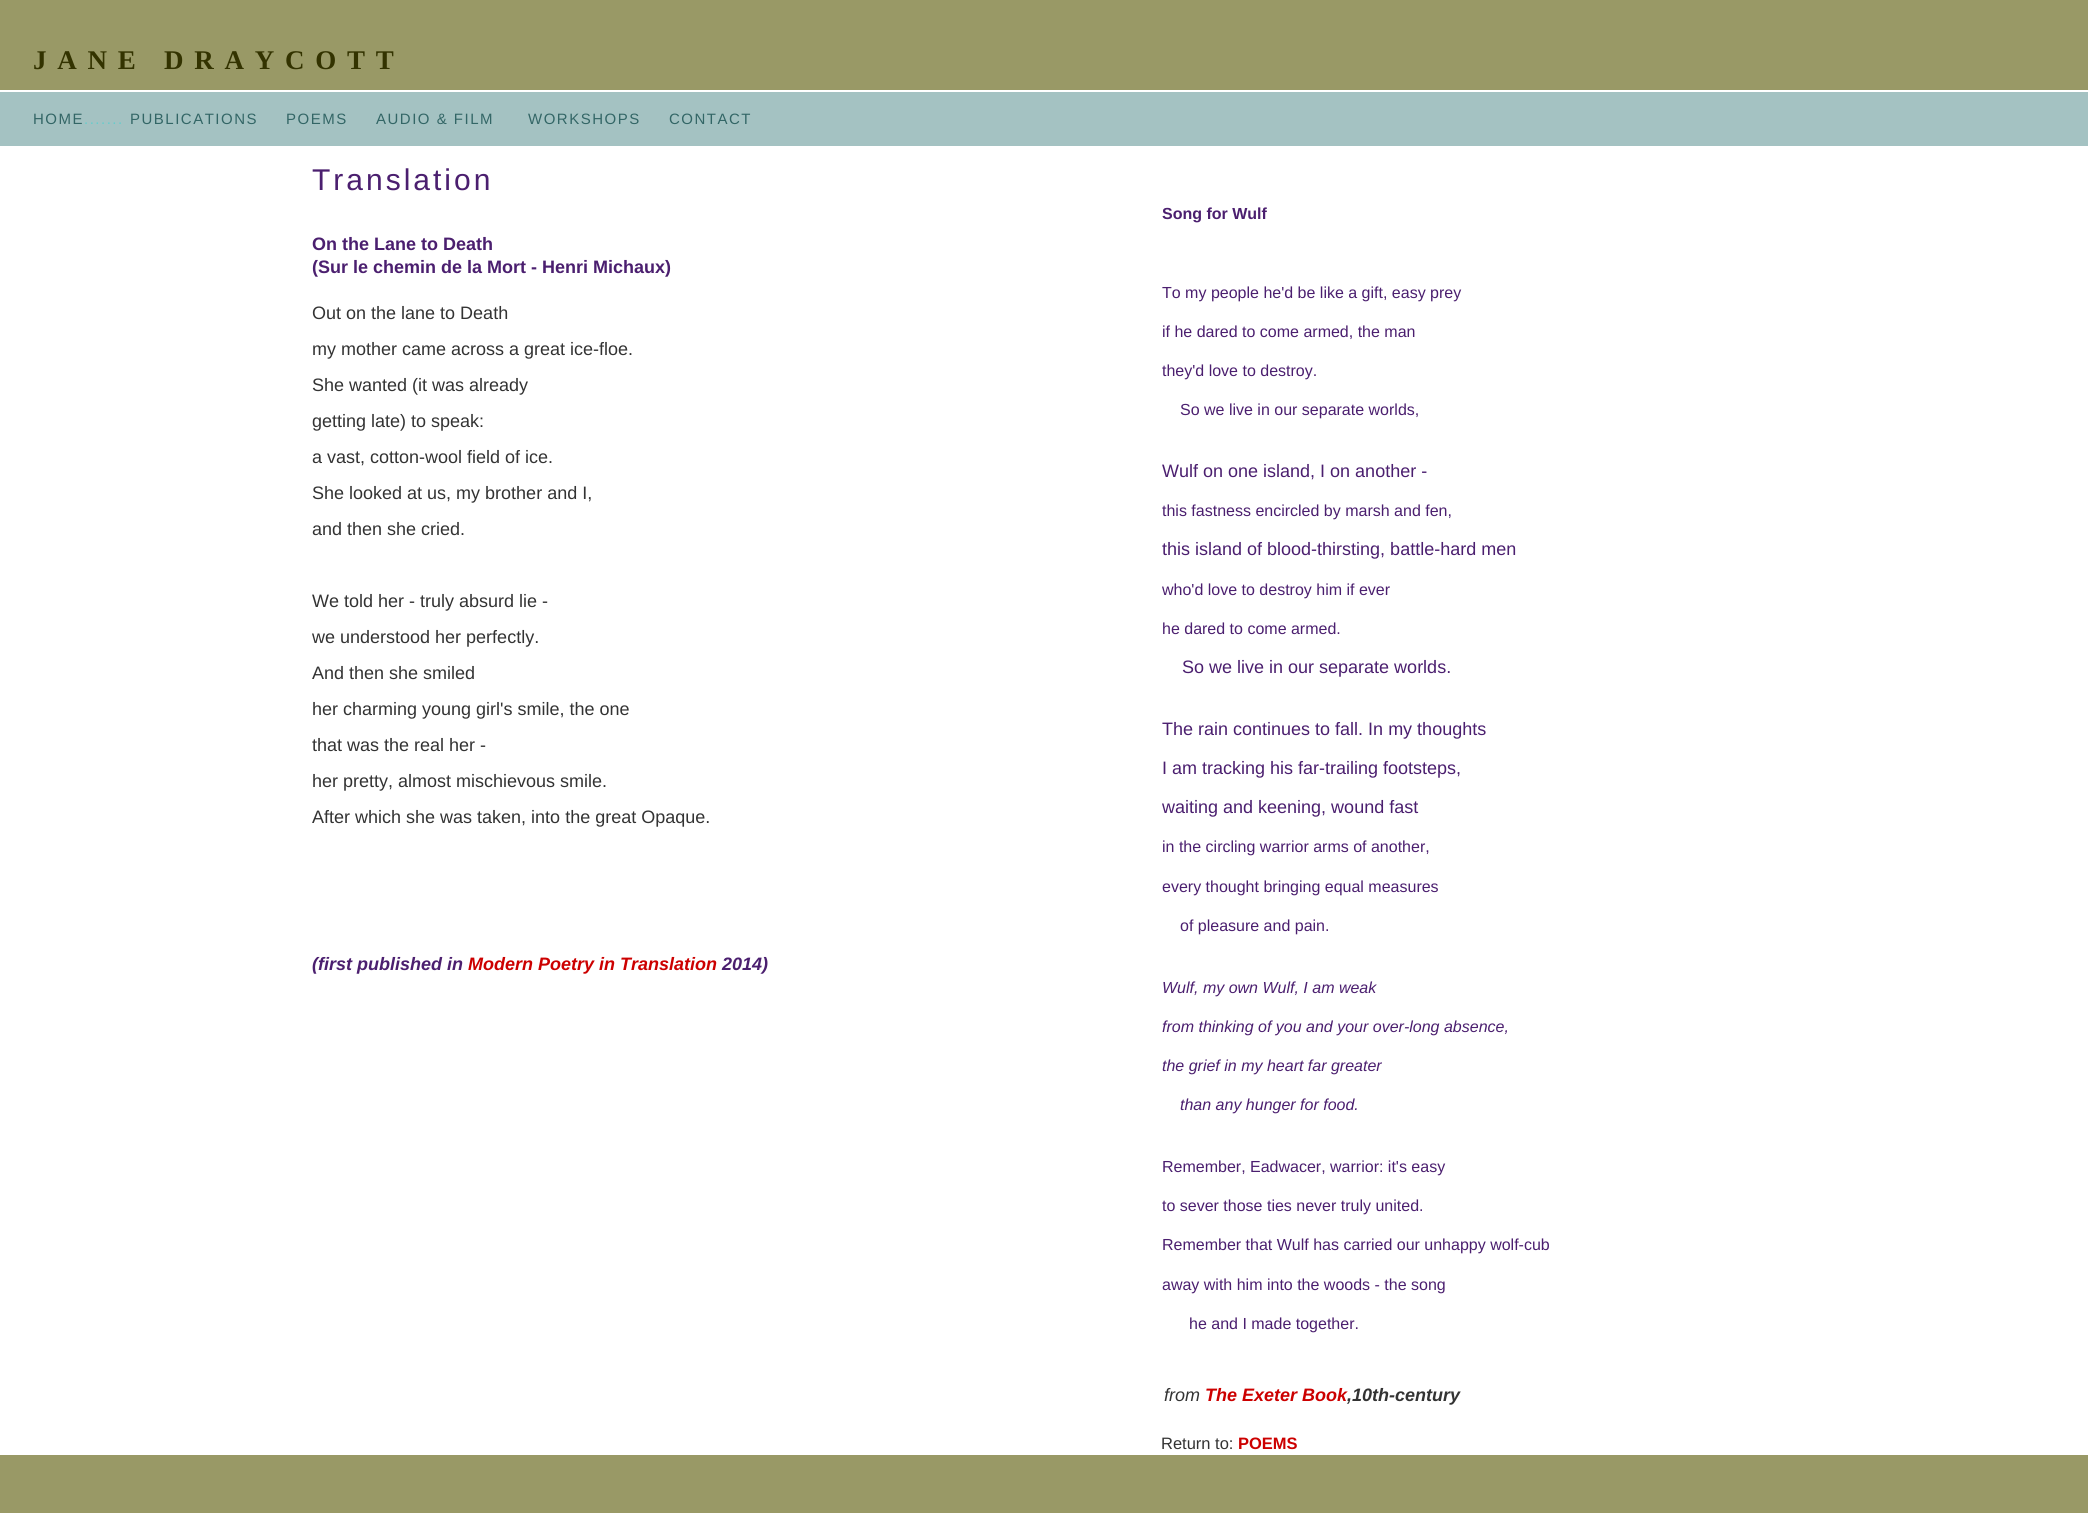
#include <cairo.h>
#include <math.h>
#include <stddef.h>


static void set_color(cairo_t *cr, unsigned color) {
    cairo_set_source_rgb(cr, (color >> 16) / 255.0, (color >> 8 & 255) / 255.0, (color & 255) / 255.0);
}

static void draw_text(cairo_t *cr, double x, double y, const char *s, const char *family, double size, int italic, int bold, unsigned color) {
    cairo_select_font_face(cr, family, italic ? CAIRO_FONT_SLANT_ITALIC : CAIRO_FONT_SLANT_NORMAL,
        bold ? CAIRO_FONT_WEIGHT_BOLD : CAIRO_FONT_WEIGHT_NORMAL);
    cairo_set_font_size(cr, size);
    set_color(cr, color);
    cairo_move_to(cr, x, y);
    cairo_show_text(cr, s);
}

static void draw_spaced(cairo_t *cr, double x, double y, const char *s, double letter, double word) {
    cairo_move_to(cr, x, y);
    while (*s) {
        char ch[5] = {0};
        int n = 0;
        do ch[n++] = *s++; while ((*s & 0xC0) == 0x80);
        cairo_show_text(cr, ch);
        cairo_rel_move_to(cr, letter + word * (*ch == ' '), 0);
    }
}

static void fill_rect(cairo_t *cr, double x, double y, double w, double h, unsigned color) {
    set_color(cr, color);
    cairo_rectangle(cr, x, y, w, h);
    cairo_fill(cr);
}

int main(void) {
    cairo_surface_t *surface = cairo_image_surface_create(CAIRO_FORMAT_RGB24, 2088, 1513);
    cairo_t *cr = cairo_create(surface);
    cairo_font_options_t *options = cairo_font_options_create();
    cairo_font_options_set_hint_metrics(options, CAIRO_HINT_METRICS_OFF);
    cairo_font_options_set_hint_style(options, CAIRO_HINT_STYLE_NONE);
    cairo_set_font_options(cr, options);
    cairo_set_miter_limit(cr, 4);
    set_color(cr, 0x999966);
    cairo_paint(cr);
    cairo_select_font_face(cr, "Liberation Serif", CAIRO_FONT_SLANT_NORMAL, CAIRO_FONT_WEIGHT_BOLD);
    cairo_set_font_size(cr, 27);
    set_color(cr, 0x333300);
    draw_spaced(cr, 33, 69, "JANE DRAYCOTT", 10.75, 0);
    fill_rect(cr, 0, 90, 2088, 2, 0xFFFFFF);
    fill_rect(cr, 0, 92, 2088, 54, 0xA4C2C2);
    cairo_select_font_face(cr, "Liberation Sans", CAIRO_FONT_SLANT_NORMAL, CAIRO_FONT_WEIGHT_NORMAL);
    cairo_set_font_size(cr, 15);
    set_color(cr, 0x336666);
    draw_spaced(cr, 33, 124, "HOME", 1.5, 0);
    set_color(cr, 0x66CCCC);
    draw_spaced(cr, 84, 124, ".......", 1.5, 0);
    set_color(cr, 0x336666);
    draw_spaced(cr, 130, 124, "PUBLICATIONS", 1.5, 0);
    draw_spaced(cr, 286, 124, "POEMS", 1.5, 0);
    draw_spaced(cr, 376, 124, "AUDIO & FILM", 1.5, 0);
    draw_spaced(cr, 528, 124, "WORKSHOPS", 1.5, 0);
    draw_spaced(cr, 669, 124, "CONTACT", 1.5, 0);
    fill_rect(cr, 0, 146, 2088, 1309, 0xFFFFFF);
    cairo_set_font_size(cr, 30);
    set_color(cr, 0x4B1F6F);
    draw_spaced(cr, 312, 190, "Translation", 3, 0);
    draw_text(cr, 312, 250, "On the Lane to Death", "Liberation Sans", 18, 0, 1, 0x4B1F6F);
    draw_text(cr, 312, 273, "(Sur le chemin de la Mort - Henri Michaux)", "Liberation Sans", 18, 0, 1, 0x4B1F6F);
    draw_text(cr, 312, 319, "Out on the lane to Death", "Liberation Sans", 18, 0, 0, 0x333333);
    draw_text(cr, 312, 355, "my mother came across a great ice-floe.", "Liberation Sans", 18, 0, 0, 0x333333);
    draw_text(cr, 312, 391, "She wanted (it was already", "Liberation Sans", 18, 0, 0, 0x333333);
    draw_text(cr, 312, 427, "getting late) to speak:", "Liberation Sans", 18, 0, 0, 0x333333);
    draw_text(cr, 312, 463, "a vast, cotton-wool field of ice.", "Liberation Sans", 18, 0, 0, 0x333333);
    draw_text(cr, 312, 499, "She looked at us, my brother and I,", "Liberation Sans", 18, 0, 0, 0x333333);
    draw_text(cr, 312, 535, "and then she cried.", "Liberation Sans", 18, 0, 0, 0x333333);
    draw_text(cr, 312, 607, "We told her - truly absurd lie -", "Liberation Sans", 18, 0, 0, 0x333333);
    draw_text(cr, 312, 643, "we understood her perfectly.", "Liberation Sans", 18, 0, 0, 0x333333);
    draw_text(cr, 312, 679, "And then she smiled", "Liberation Sans", 18, 0, 0, 0x333333);
    draw_text(cr, 312, 715, "her charming young girl's smile, the one", "Liberation Sans", 18, 0, 0, 0x333333);
    draw_text(cr, 312, 751, "that was the real her -", "Liberation Sans", 18, 0, 0, 0x333333);
    draw_text(cr, 312, 787, "her pretty, almost mischievous smile.", "Liberation Sans", 18, 0, 0, 0x333333);
    draw_text(cr, 312, 823, "After which she was taken, into the great Opaque.", "Liberation Sans", 18, 0, 0, 0x333333);
    draw_text(cr, 312, 970, "(first published in", "Liberation Sans", 18, 1, 1, 0x4B1F6F);
    draw_text(cr, 468, 970, "Modern Poetry in Translation", "Liberation Sans", 18, 1, 1, 0xCC0000);
    draw_text(cr, 722, 970, "2014)", "Liberation Sans", 18, 1, 1, 0x4B1F6F);
    draw_text(cr, 1162, 219, "Song for Wulf", "Liberation Sans", 16, 0, 1, 0x4B1F6F);
    draw_text(cr, 1162, 298, "To my people he'd be like a gift, easy prey", "Liberation Sans", 16, 0, 0, 0x4B1F6F);
    draw_text(cr, 1162, 337, "if he dared to come armed, the man", "Liberation Sans", 16, 0, 0, 0x4B1F6F);
    draw_text(cr, 1162, 376, "they'd love to destroy.", "Liberation Sans", 16, 0, 0, 0x4B1F6F);
    draw_text(cr, 1180, 415, "So we live in our separate worlds,", "Liberation Sans", 16, 0, 0, 0x4B1F6F);
    draw_text(cr, 1162, 477, "Wulf on one island, I on another -", "Liberation Sans", 18, 0, 0, 0x4B1F6F);
    draw_text(cr, 1162, 516, "this fastness encircled by marsh and fen,", "Liberation Sans", 16, 0, 0, 0x4B1F6F);
    draw_text(cr, 1162, 555, "this island of blood-thirsting, battle-hard men", "Liberation Sans", 18, 0, 0, 0x4B1F6F);
    draw_text(cr, 1162, 595, "who'd love to destroy him if ever", "Liberation Sans", 16, 0, 0, 0x4B1F6F);
    draw_text(cr, 1162, 634, "he dared to come armed.", "Liberation Sans", 16, 0, 0, 0x4B1F6F);
    draw_text(cr, 1182, 673, "So we live in our separate worlds.", "Liberation Sans", 18, 0, 0, 0x4B1F6F);
    draw_text(cr, 1162, 735, "The rain continues to fall. In my thoughts", "Liberation Sans", 18, 0, 0, 0x4B1F6F);
    draw_text(cr, 1162, 774, "I am tracking his far-trailing footsteps,", "Liberation Sans", 18, 0, 0, 0x4B1F6F);
    draw_text(cr, 1162, 813, "waiting and keening, wound fast", "Liberation Sans", 18, 0, 0, 0x4B1F6F);
    draw_text(cr, 1162, 852, "in the circling warrior arms of another,", "Liberation Sans", 16, 0, 0, 0x4B1F6F);
    draw_text(cr, 1162, 892, "every thought bringing equal measures", "Liberation Sans", 16, 0, 0, 0x4B1F6F);
    draw_text(cr, 1180, 931, "of pleasure and pain.", "Liberation Sans", 16, 0, 0, 0x4B1F6F);
    draw_text(cr, 1162, 993, "Wulf, my own Wulf, I am weak", "Liberation Sans", 16, 1, 0, 0x4B1F6F);
    draw_text(cr, 1162, 1032, "from thinking of you and your over-long absence,", "Liberation Sans", 16, 1, 0, 0x4B1F6F);
    draw_text(cr, 1162, 1071, "the grief in my heart far greater", "Liberation Sans", 16, 1, 0, 0x4B1F6F);
    draw_text(cr, 1180, 1110, "than any hunger for food.", "Liberation Sans", 16, 1, 0, 0x4B1F6F);
    draw_text(cr, 1162, 1172, "Remember, Eadwacer, warrior: it's easy", "Liberation Sans", 16, 0, 0, 0x4B1F6F);
    draw_text(cr, 1162, 1211, "to sever those ties never truly united.", "Liberation Sans", 16, 0, 0, 0x4B1F6F);
    draw_text(cr, 1162, 1250, "Remember that Wulf has carried our unhappy wolf-cub", "Liberation Sans", 16, 0, 0, 0x4B1F6F);
    draw_text(cr, 1162, 1290, "away with him into the woods - the song", "Liberation Sans", 16, 0, 0, 0x4B1F6F);
    draw_text(cr, 1189, 1329, "he and I made together.", "Liberation Sans", 16, 0, 0, 0x4B1F6F);
    draw_text(cr, 1164, 1401, "from", "Liberation Sans", 18, 1, 0, 0x333333);
    draw_text(cr, 1205, 1401, "The Exeter Book", "Liberation Sans", 18, 1, 1, 0xCC0000);
    draw_text(cr, 1347, 1401, ",10th-century", "Liberation Sans", 18, 1, 1, 0x333333);
    draw_text(cr, 1161, 1449, "Return to:", "Liberation Sans", 16.5, 0, 0, 0x333333);
    draw_text(cr, 1238, 1449, "POEMS", "Liberation Sans", 16.5, 0, 1, 0xCC0000);
    cairo_surface_write_to_png(surface, "output.png");
    cairo_font_options_destroy(options);
    cairo_destroy(cr);
    cairo_surface_destroy(surface);
    return 0;
}
